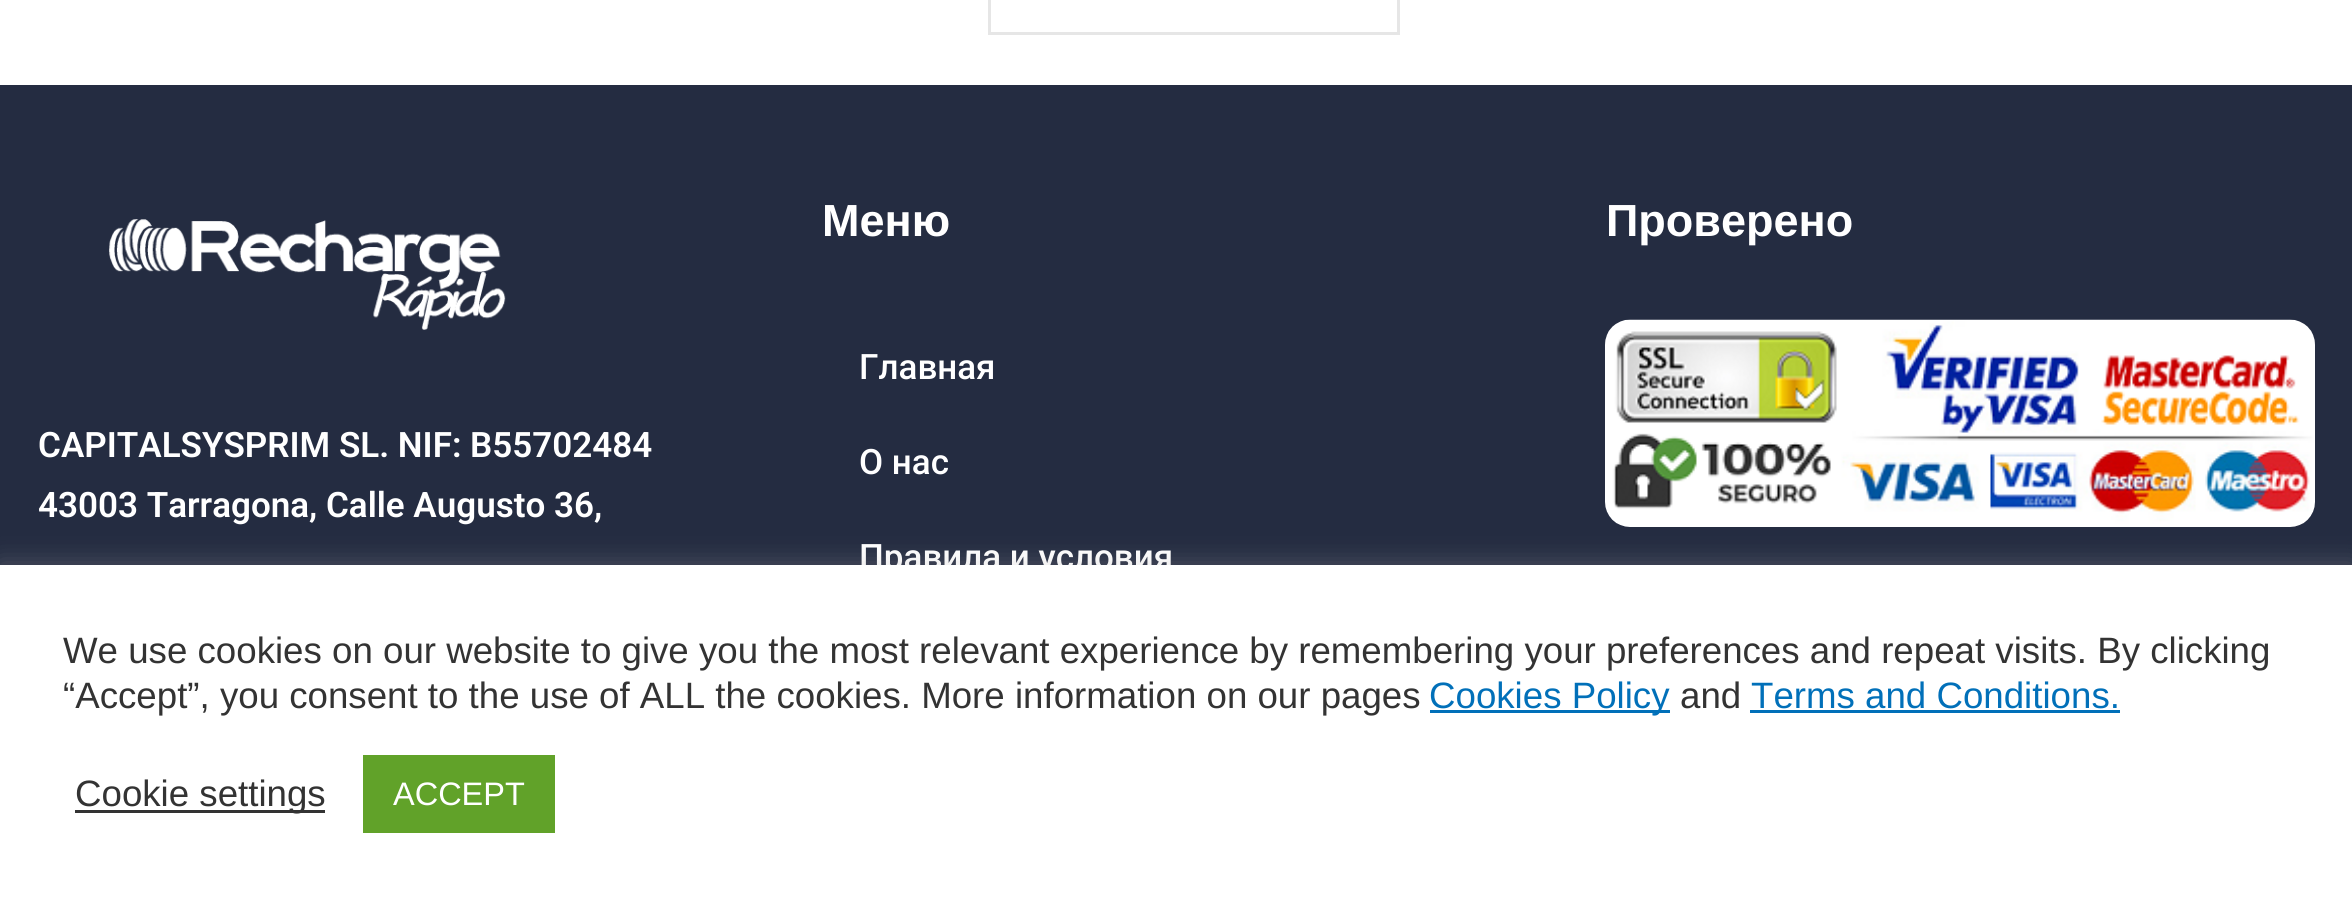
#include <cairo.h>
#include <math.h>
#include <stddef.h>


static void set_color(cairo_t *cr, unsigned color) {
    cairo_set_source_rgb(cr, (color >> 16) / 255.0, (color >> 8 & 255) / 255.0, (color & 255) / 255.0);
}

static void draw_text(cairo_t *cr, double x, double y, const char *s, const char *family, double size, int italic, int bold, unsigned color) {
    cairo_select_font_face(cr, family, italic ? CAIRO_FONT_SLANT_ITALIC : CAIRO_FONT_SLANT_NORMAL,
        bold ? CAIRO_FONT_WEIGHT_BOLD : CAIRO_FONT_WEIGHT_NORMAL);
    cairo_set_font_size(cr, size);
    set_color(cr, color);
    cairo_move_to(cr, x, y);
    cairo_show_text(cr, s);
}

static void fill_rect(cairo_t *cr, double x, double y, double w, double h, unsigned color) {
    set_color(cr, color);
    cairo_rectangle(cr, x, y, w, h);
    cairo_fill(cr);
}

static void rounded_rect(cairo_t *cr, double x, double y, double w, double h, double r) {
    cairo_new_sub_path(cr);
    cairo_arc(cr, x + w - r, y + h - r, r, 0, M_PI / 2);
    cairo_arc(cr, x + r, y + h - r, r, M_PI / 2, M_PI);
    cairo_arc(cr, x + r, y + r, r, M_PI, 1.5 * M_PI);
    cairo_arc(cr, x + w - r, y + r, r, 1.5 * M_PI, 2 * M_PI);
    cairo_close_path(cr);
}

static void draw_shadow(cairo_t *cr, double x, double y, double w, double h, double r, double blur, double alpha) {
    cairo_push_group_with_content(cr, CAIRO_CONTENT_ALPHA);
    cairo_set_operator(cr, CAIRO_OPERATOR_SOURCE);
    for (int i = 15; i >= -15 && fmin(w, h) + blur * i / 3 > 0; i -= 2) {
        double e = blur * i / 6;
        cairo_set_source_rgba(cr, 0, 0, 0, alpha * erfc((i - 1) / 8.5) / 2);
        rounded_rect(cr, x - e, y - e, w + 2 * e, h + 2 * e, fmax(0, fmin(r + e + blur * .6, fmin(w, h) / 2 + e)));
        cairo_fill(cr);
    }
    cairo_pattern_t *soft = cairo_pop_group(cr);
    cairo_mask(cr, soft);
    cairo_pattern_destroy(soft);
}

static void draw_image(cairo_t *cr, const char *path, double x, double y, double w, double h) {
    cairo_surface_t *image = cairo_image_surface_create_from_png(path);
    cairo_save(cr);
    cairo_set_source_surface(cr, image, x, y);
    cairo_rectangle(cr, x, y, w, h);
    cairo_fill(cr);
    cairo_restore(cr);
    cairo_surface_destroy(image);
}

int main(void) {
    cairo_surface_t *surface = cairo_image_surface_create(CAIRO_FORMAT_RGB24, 2352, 907);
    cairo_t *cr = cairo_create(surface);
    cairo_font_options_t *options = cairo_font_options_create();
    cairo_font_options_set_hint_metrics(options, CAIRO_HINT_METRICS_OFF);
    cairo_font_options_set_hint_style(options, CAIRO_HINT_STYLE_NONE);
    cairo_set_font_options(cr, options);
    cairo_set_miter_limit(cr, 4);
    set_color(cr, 0xFFFFFF);
    cairo_paint(cr);
    cairo_rectangle(cr, 989.5, -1.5, 409, 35);
    set_color(cr, 0xE6E6E6);
    cairo_set_line_width(cr, 3);
    cairo_stroke(cr);
    fill_rect(cr, 0, 85, 2352, 480, 0x242C41);
    draw_text(cr, 822, 236, "Меню", "Liberation Sans", 45, 0, 1, 0xFFFFFF);
    draw_text(cr, 859, 379, "Главная", "Roboto Medium", 35, 0, 0, 0xFFFFFF);
    draw_text(cr, 859, 474, "О нас", "Roboto Medium", 35, 0, 0, 0xFFFFFF);
    draw_text(cr, 859, 569, "Правила и условия", "Roboto Medium", 35, 0, 0, 0xFFFFFF);
    draw_text(cr, 1606, 236, "Проверено", "Liberation Sans", 45, 0, 1, 0xFFFFFF);
    draw_image(cr, "assets/img1.png", 1605, 319, 710, 208);
    draw_image(cr, "assets/img2.png", 109, 219, 397, 111);
    draw_text(cr, 38, 457, "CAPITALSYSPRIM SL. NIF: B55702484", "Roboto SemiBold", 35, 0, 0, 0xFFFFFF);
    draw_text(cr, 38, 517, "43003 Tarragona, Calle Augusto 36,", "Roboto SemiBold", 35, 0, 0, 0xFFFFFF);
    set_color(cr, 0xACABAB);
    draw_shadow(cr, 0, 563, 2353, 342, 0, 12.5, 0.3);
    fill_rect(cr, 0, 565, 2352, 342, 0xFFFFFF);
    draw_text(cr, 63, 663, "We use cookies on our website to give you the most relevant experience by remembering your preferences and repeat visits. By clicking", "Liberation Sans", 36.67, 0, 0, 0x333333);
    draw_text(cr, 63, 708, "“Accept”, you consent to the use of ALL the cookies. More information on our pages", "Liberation Sans", 36.67, 0, 0, 0x333333);
    fill_rect(cr, 1430, 710, 240, 3, 0x0170B9);
    draw_text(cr, 1429, 708, "Cookies Policy", "Liberation Sans", 36.67, 0, 0, 0x0170B9);
    draw_text(cr, 1680, 708, "and", "Liberation Sans", 36.67, 0, 0, 0x333333);
    draw_text(cr, 1751, 708, "Terms and Conditions.", "Liberation Sans", 36.67, 0, 0, 0x0170B9);
    fill_rect(cr, 1750, 710, 370, 3, 0x0170B9);
    fill_rect(cr, 75, 810, 250, 3, 0x333333);
    draw_text(cr, 75, 806, "Cookie settings", "Liberation Sans", 36.67, 0, 0, 0x333333);
    fill_rect(cr, 363, 755, 192, 78, 0x61A229);
    draw_text(cr, 393, 805, "ACCEPT", "Liberation Sans", 32.5, 0, 0, 0xFFFFFF);
    cairo_surface_write_to_png(surface, "output.png");
    cairo_font_options_destroy(options);
    cairo_destroy(cr);
    cairo_surface_destroy(surface);
    return 0;
}
